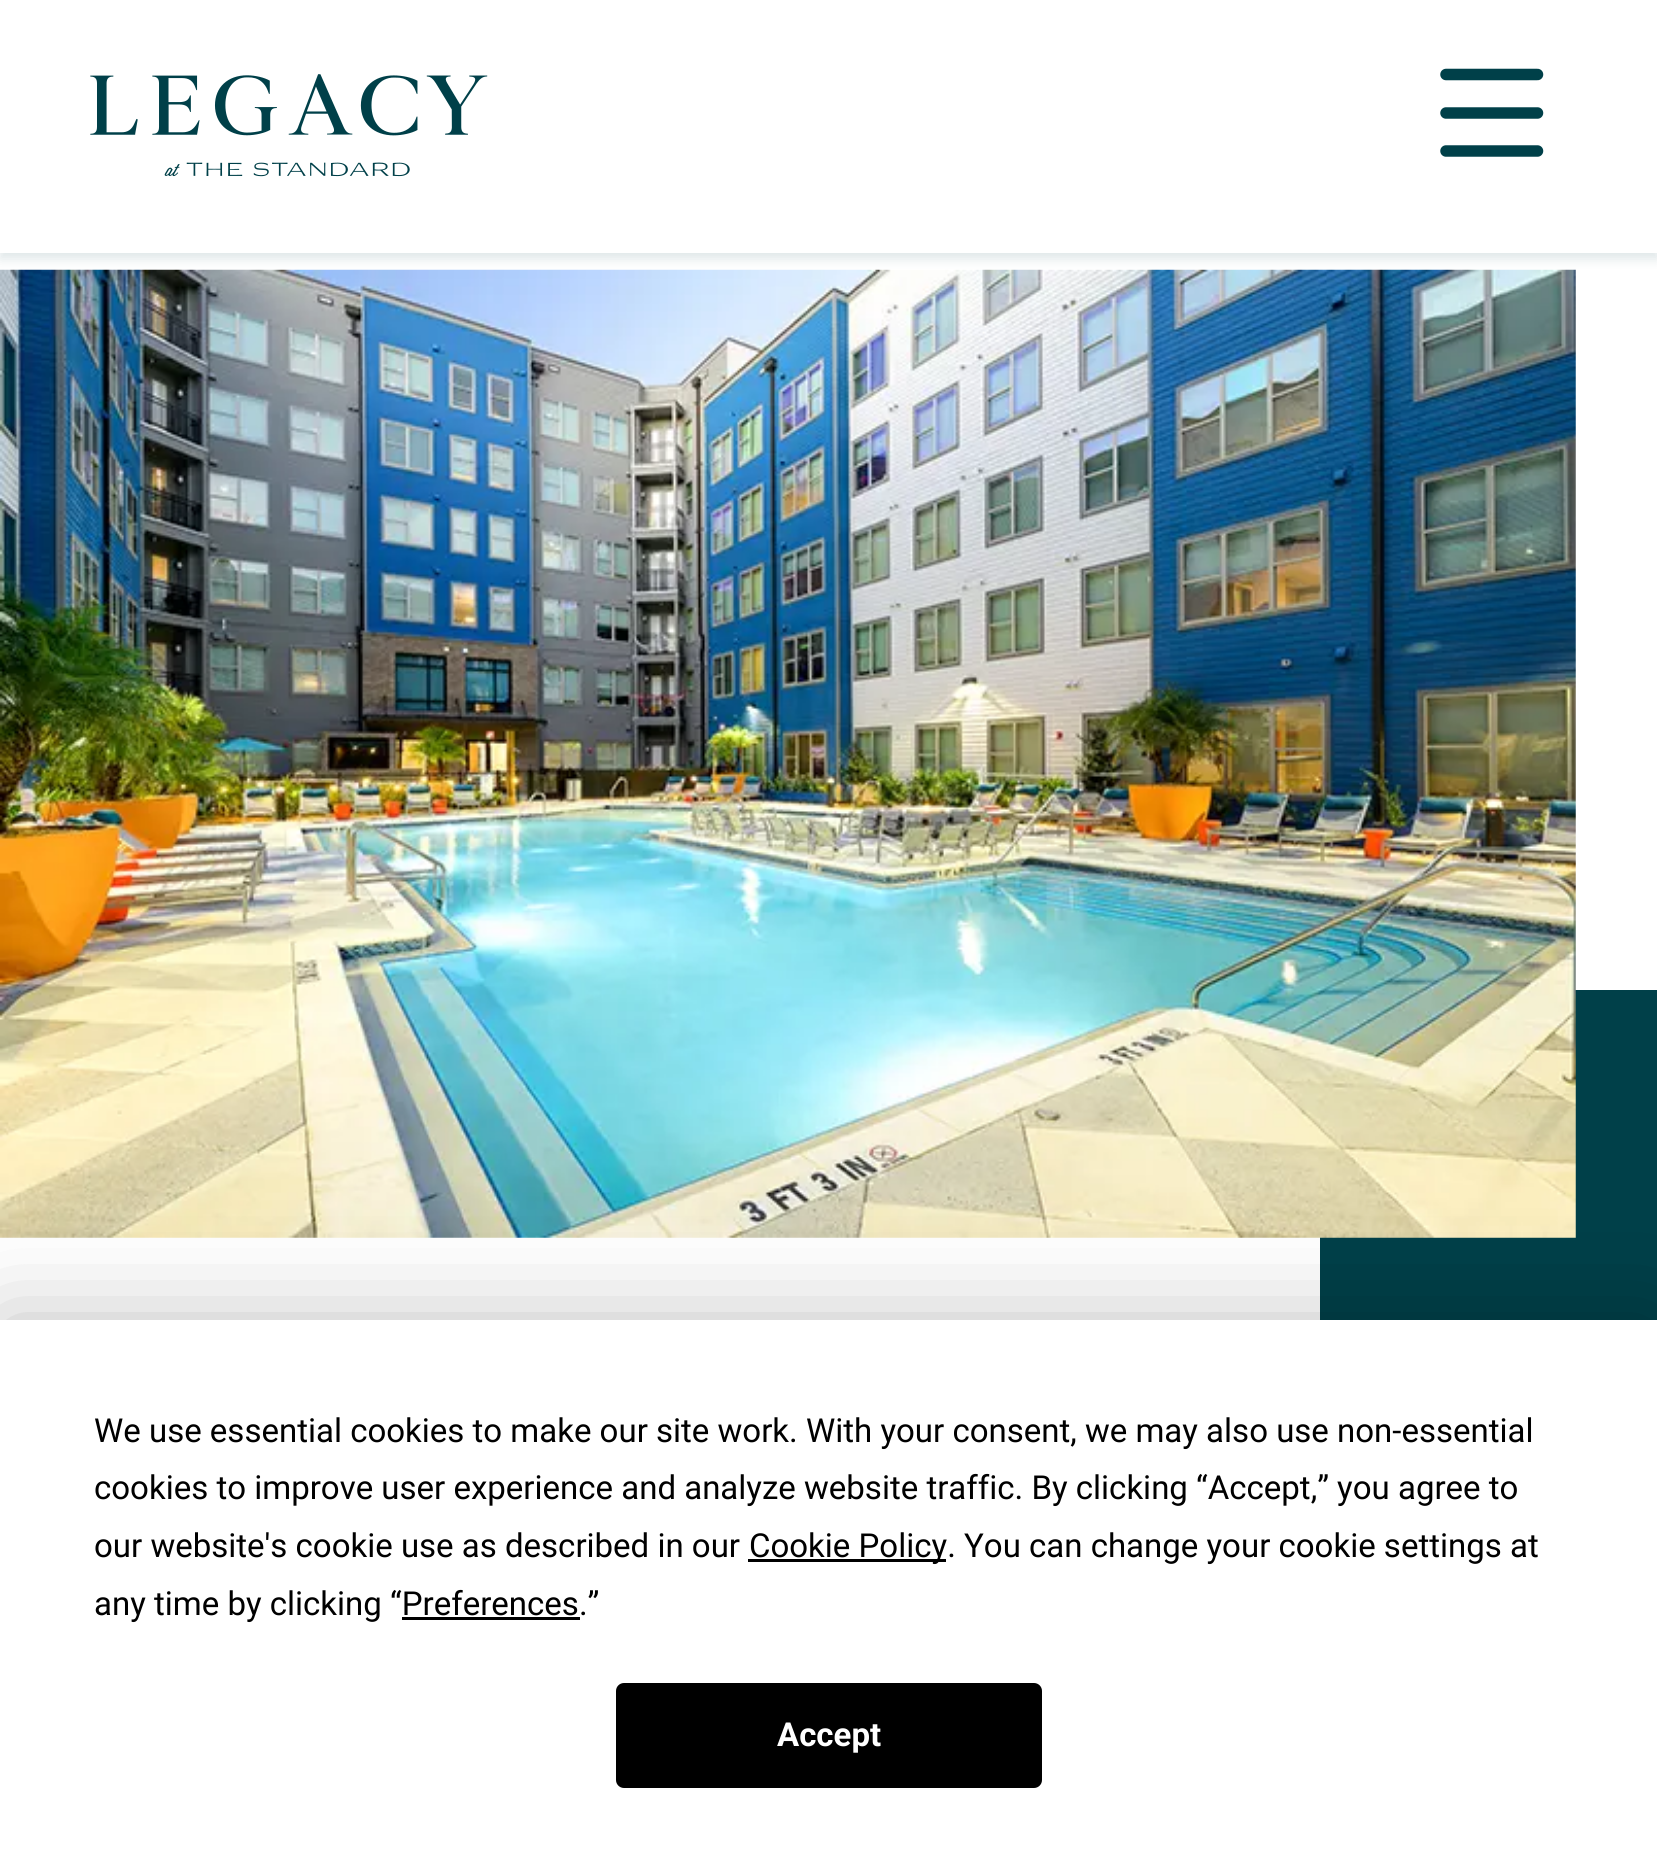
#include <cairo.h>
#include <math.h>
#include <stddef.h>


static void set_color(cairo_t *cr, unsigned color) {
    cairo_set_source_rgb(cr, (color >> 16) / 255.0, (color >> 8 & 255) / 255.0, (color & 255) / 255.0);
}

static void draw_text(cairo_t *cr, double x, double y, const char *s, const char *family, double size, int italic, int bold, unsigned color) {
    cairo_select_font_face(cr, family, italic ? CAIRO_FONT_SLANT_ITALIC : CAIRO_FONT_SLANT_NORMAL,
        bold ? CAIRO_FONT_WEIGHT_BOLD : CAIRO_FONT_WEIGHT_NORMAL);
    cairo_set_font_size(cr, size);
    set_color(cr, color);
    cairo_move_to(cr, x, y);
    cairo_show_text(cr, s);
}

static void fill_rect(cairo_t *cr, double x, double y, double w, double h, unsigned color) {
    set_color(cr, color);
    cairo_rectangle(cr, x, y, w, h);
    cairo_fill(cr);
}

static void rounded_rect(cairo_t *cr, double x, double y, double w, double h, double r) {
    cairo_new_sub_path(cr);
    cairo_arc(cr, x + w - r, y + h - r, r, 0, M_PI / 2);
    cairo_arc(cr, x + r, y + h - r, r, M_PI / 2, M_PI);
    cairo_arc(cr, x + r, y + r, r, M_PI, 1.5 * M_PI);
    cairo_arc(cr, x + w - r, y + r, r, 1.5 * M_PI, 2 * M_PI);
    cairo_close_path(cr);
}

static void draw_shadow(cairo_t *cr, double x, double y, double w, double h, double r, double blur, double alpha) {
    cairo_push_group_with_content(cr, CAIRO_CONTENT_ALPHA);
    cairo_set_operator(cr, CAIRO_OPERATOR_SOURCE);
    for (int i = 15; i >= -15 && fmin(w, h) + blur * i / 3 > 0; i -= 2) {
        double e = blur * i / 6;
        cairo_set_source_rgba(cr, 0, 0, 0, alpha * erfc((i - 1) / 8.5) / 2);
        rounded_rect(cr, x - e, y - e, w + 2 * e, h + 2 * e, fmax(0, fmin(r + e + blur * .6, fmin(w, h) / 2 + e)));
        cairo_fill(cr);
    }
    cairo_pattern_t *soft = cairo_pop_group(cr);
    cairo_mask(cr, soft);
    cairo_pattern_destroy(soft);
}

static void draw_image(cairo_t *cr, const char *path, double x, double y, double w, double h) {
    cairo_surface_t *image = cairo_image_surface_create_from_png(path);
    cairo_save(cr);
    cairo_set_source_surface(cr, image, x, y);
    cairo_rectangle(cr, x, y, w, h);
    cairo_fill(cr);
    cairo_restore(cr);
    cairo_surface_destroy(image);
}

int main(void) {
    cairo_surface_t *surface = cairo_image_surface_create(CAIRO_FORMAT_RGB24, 1657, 1869);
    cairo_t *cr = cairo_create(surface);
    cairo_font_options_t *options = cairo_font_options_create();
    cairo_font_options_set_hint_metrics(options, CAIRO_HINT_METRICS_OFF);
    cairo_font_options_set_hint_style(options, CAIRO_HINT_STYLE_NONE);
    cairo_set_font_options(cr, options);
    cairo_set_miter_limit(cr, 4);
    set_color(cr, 0xFFFFFF);
    cairo_paint(cr);
    fill_rect(cr, 1320, 990, 337, 330, 0x004049);
    draw_image(cr, "assets/img2.png", 0, 269, 1576, 969);
    set_color(cr, 0x004049);
    draw_shadow(cr, 0, 6, 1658, 253, 0, 5.5, 0.13);
    fill_rect(cr, 0, 0, 1657, 253, 0xFFFFFF);
    draw_image(cr, "assets/img1.png", 90, 74, 398, 103);
    cairo_new_path(cr);
    cairo_move_to(cr, 1446, 74.5);
    cairo_line_to(cr, 1537.5, 74.5);
    set_color(cr, 0x004049);
    cairo_set_line_width(cr, 11.5);
    cairo_set_line_cap(cr, CAIRO_LINE_CAP_ROUND);
    cairo_set_line_join(cr, CAIRO_LINE_JOIN_ROUND);
    cairo_stroke(cr);
    cairo_new_path(cr);
    cairo_move_to(cr, 1446, 113);
    cairo_line_to(cr, 1537.5, 113);
    cairo_stroke(cr);
    cairo_new_path(cr);
    cairo_move_to(cr, 1446, 151);
    cairo_line_to(cr, 1537.5, 151);
    cairo_stroke(cr);
    set_color(cr, 0x000000);
    draw_shadow(cr, 0, 1320, 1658, 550, 0, 48, 0.25);
    fill_rect(cr, 0, 1320, 1657, 549, 0xFFFFFF);
    draw_text(cr, 94, 1442, "We use essential cookies to make our site work. With your consent, we may also use non-essential", "Roboto", 33, 0, 0, 0x000000);
    draw_text(cr, 94, 1499, "cookies to improve user experience and analyze website traffic. By clicking “Accept,” you agree to", "Roboto", 33, 0, 0, 0x000000);
    draw_text(cr, 94, 1557, "our website's cookie use as described in our", "Roboto", 33, 0, 0, 0x000000);
    fill_rect(cr, 748, 1559, 198, 3, 0x000000);
    draw_text(cr, 749, 1557, "Cookie Policy. You can change your cookie settings at", "Roboto", 33, 0, 0, 0x000000);
    draw_text(cr, 94, 1615, "any time by clicking “Preferences.”", "Roboto", 33, 0, 0, 0x000000);
    fill_rect(cr, 402, 1617, 178, 3, 0x000000);
    rounded_rect(cr, 617.5, 1684.5, 423, 102, 6.5);
    cairo_fill_preserve(cr);
    cairo_set_line_width(cr, 3);
    cairo_set_line_cap(cr, CAIRO_LINE_CAP_BUTT);
    cairo_set_line_join(cr, CAIRO_LINE_JOIN_MITER);
    cairo_stroke(cr);
    draw_text(cr, 777, 1746, "Accept", "Roboto", 33, 0, 1, 0xFFFFFF);
    cairo_surface_write_to_png(surface, "output.png");
    cairo_font_options_destroy(options);
    cairo_destroy(cr);
    cairo_surface_destroy(surface);
    return 0;
}
